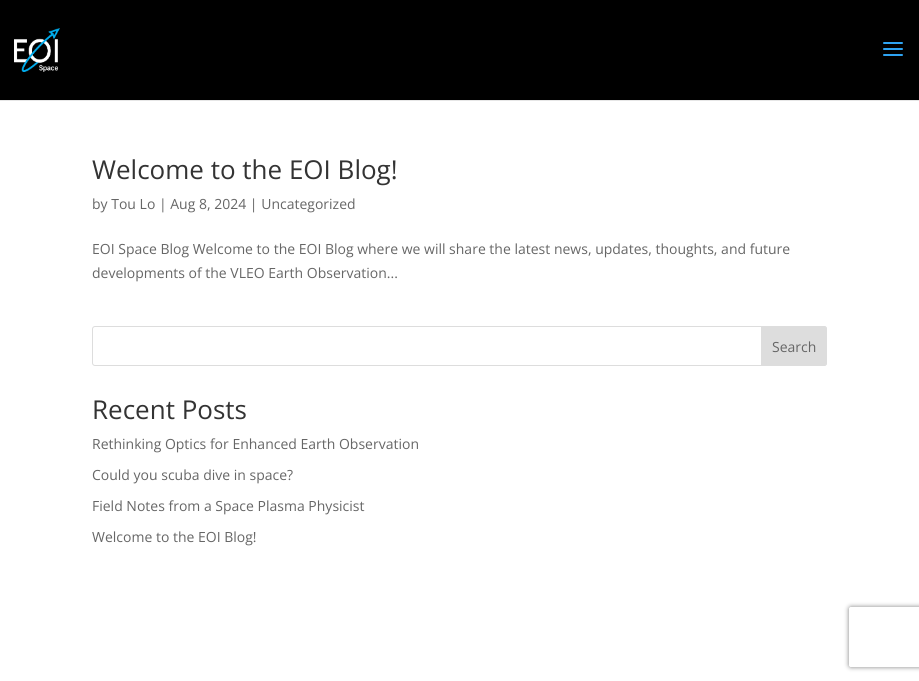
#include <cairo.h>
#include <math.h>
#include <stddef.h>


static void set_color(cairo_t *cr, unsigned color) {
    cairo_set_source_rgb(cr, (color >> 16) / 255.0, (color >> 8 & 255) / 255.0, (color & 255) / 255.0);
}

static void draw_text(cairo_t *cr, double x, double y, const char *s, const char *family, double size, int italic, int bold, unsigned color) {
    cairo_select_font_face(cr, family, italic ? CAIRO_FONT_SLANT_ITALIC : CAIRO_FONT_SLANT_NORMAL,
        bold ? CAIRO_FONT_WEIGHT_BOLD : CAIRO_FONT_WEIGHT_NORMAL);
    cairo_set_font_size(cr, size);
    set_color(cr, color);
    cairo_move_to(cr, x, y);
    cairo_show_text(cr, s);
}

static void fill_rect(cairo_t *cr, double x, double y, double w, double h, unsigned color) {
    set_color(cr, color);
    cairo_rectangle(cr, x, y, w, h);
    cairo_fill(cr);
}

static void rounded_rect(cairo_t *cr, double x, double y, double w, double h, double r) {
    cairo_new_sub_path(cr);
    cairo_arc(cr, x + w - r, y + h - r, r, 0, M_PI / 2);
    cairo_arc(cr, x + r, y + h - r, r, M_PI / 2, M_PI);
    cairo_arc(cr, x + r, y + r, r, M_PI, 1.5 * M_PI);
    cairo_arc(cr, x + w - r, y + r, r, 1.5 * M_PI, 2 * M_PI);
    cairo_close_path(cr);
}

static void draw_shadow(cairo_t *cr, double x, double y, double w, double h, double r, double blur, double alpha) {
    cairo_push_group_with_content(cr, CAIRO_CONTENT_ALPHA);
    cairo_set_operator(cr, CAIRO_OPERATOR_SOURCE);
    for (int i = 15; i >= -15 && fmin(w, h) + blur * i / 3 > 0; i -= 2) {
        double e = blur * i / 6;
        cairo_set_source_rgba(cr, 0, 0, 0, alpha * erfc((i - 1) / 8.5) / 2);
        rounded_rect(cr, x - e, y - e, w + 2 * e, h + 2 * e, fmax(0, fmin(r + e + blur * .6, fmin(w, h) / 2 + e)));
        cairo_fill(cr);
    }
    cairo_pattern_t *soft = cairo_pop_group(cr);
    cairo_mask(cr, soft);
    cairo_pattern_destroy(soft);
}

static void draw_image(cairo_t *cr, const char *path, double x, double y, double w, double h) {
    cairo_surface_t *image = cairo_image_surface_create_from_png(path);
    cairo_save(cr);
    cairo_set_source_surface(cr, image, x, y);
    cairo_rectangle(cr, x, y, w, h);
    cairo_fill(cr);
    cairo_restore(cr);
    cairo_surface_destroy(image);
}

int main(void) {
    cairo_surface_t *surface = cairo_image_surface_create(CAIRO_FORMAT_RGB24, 919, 681);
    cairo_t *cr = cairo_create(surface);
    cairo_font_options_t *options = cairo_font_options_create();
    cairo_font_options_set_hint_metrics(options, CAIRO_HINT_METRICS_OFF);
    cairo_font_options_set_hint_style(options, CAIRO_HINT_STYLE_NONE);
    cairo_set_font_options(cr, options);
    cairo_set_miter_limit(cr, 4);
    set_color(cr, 0xFFFFFF);
    cairo_paint(cr);
    fill_rect(cr, 0, 100, 919, 1, 0xE6E6E6);
    fill_rect(cr, 0, 0, 919, 100, 0x000000);
    draw_image(cr, "assets/img1.png", 14, 28, 46, 44);
    draw_image(cr, "assets/img2.png", 883, 42, 20, 14);
    draw_text(cr, 92, 179, "Welcome to the EOI Blog!", "Open Sans", 26, 0, 0, 0x333333);
    draw_text(cr, 92, 209, "by Tou Lo | Aug 8, 2024 | Uncategorized", "Open Sans", 14, 0, 0, 0x666666);
    draw_text(cr, 92, 254, "EOI Space Blog Welcome to the EOI Blog where we will share the latest news, updates, thoughts, and future", "Open Sans", 14, 0, 0, 0x666666);
    draw_text(cr, 92, 278, "developments of the VLEO Earth Observation...", "Open Sans", 14, 0, 0, 0x666666);
    rounded_rect(cr, 92.5, 326.5, 734, 39, 2.5);
    set_color(cr, 0xDDDDDD);
    cairo_set_line_width(cr, 1);
    cairo_stroke(cr);
    cairo_new_path(cr);
    cairo_move_to(cr, 761.5, 326.5);
    cairo_line_to(cr, 824, 326.5);
    cairo_curve_to(cr, 825.5, 326.5, 826.5, 327.5, 826.5, 329);
    cairo_line_to(cr, 826.5, 363);
    cairo_curve_to(cr, 826.5, 364.5, 825.5, 365.5, 824, 365.5);
    cairo_line_to(cr, 761.5, 365.5);
    cairo_close_path(cr);
    cairo_fill_preserve(cr);
    cairo_stroke(cr);
    draw_text(cr, 772, 352, "Search", "Open Sans", 14, 0, 0, 0x666666);
    draw_text(cr, 92, 419, "Recent Posts", "Open Sans", 26, 0, 0, 0x333333);
    draw_text(cr, 92, 449, "Rethinking Optics for Enhanced Earth Observation", "Open Sans", 14, 0, 0, 0x666666);
    draw_text(cr, 92, 480, "Could you scuba dive in space?", "Open Sans", 14, 0, 0, 0x666666);
    draw_text(cr, 92, 511, "Field Notes from a Space Plasma Physicist", "Open Sans", 14, 0, 0, 0x666666);
    draw_text(cr, 92, 542, "Welcome to the EOI Blog!", "Open Sans", 14, 0, 0, 0x666666);
    cairo_save(cr);
    cairo_set_fill_rule(cr, CAIRO_FILL_RULE_EVEN_ODD);
    cairo_new_path(cr);
    cairo_move_to(cr, 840, 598);
    cairo_line_to(cr, 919, 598);
    cairo_line_to(cr, 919, 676);
    cairo_line_to(cr, 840, 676);
    cairo_close_path(cr);
    cairo_move_to(cr, 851, 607);
    cairo_line_to(cr, 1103, 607);
    cairo_curve_to(cr, 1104, 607, 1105, 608, 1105, 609);
    cairo_line_to(cr, 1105, 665);
    cairo_curve_to(cr, 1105, 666, 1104, 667, 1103, 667);
    cairo_line_to(cr, 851, 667);
    cairo_curve_to(cr, 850, 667, 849, 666, 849, 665);
    cairo_line_to(cr, 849, 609);
    cairo_curve_to(cr, 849, 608, 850, 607, 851, 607);
    cairo_close_path(cr);
    cairo_clip(cr);
    set_color(cr, 0x808080);
    draw_shadow(cr, 849, 607, 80, 60, 2, 2.5, 1);
    cairo_restore(cr);
    cairo_surface_write_to_png(surface, "output.png");
    cairo_font_options_destroy(options);
    cairo_destroy(cr);
    cairo_surface_destroy(surface);
    return 0;
}
